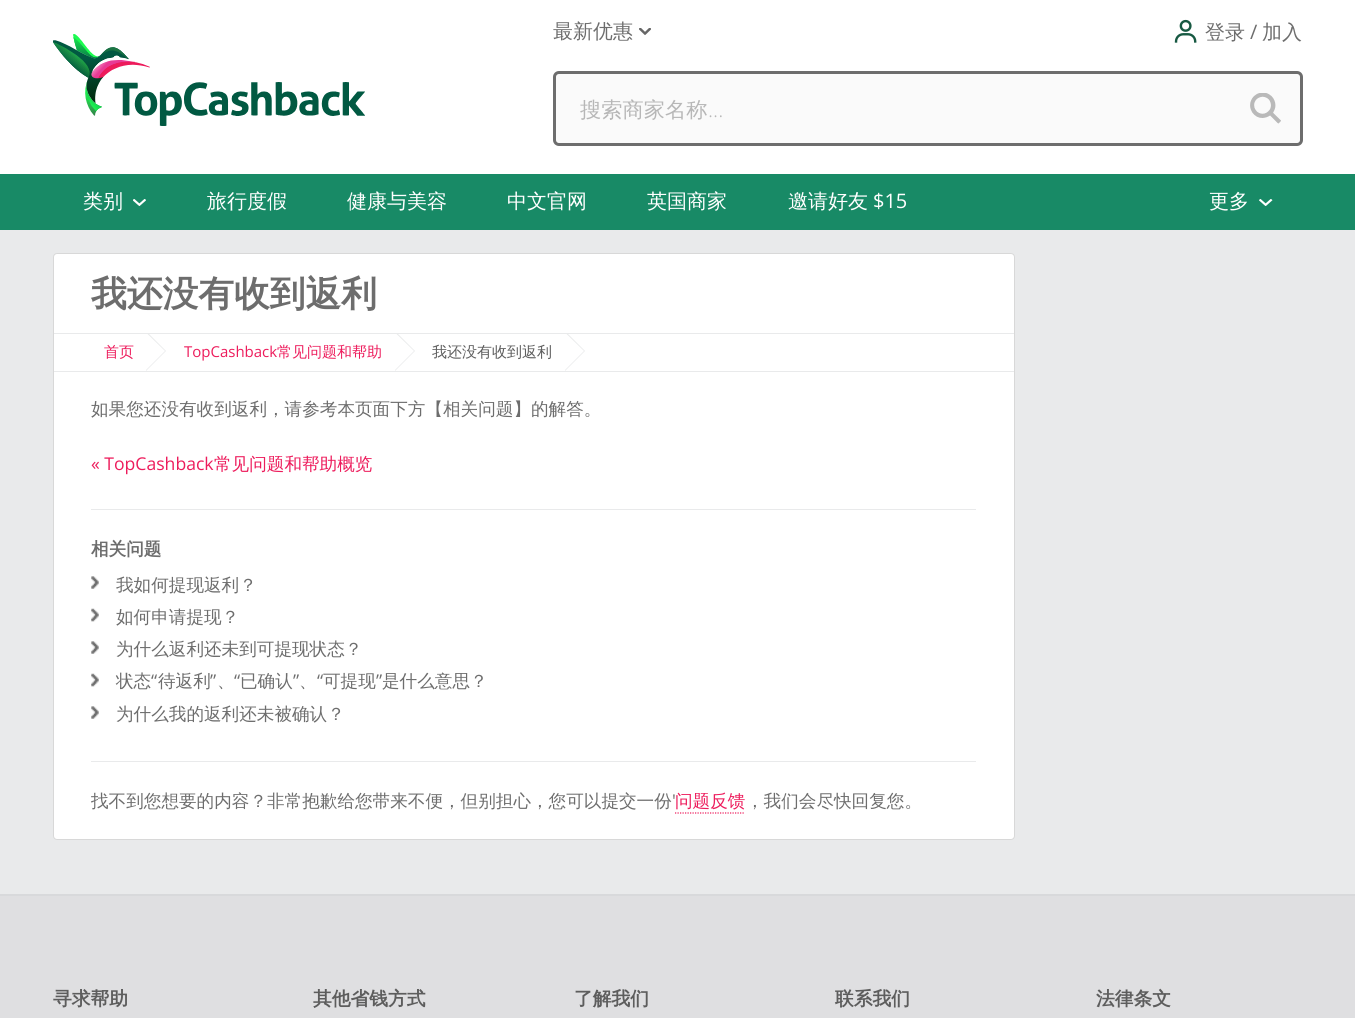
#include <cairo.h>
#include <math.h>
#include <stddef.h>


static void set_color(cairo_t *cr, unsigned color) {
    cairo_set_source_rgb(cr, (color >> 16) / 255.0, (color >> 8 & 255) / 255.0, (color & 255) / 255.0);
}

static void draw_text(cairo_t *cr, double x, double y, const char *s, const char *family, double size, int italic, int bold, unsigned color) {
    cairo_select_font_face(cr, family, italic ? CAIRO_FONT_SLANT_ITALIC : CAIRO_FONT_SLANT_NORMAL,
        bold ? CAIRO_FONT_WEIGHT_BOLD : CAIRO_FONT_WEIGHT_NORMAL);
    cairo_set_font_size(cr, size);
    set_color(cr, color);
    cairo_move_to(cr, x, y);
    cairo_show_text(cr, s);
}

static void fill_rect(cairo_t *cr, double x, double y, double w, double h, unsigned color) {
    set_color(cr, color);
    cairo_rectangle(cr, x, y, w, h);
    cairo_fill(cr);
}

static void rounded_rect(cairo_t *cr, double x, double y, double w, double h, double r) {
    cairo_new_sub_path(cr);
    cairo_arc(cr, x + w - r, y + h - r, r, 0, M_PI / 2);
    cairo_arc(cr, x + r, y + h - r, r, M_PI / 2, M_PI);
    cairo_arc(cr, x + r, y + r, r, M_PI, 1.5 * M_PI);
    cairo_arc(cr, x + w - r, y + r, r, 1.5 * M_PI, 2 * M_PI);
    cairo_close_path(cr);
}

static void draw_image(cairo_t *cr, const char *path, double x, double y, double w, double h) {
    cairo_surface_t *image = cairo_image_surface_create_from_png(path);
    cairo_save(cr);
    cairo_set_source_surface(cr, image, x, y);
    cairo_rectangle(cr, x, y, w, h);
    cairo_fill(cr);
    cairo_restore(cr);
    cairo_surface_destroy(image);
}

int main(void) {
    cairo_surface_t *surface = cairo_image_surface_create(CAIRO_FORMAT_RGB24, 1355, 1018);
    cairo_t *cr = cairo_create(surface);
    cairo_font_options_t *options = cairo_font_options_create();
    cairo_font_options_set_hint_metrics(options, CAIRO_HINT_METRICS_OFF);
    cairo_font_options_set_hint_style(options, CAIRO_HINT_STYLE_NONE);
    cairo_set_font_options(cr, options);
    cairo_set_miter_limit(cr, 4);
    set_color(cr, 0xE9EAEB);
    cairo_paint(cr);
    fill_rect(cr, 0, 0, 1355, 174, 0xFFFFFF);
    draw_image(cr, "assets/img1.png", 53, 34, 312, 92);
    draw_text(cr, 553, 38, "最新优惠", "WenQuanYi Zen Hei Medium", 20, 0, 0, 0x6D6D6D);
    draw_image(cr, "assets/img2.png", 639, 28, 12, 7);
    draw_image(cr, "assets/img3.png", 1174, 19, 23, 24);
    draw_text(cr, 1205, 39, "登录", "WenQuanYi Zen Hei Medium", 20, 0, 0, 0x6D6D6D);
    draw_text(cr, 1250, 39, "/", "Open Sans", 20, 0, 0, 0x6D6D6D);
    draw_text(cr, 1262, 39, "加入", "WenQuanYi Zen Hei Medium", 20, 0, 0, 0x6D6D6D);
    set_color(cr, 0xFAFAFA);
    rounded_rect(cr, 553, 71, 750, 75, 6);
    cairo_fill(cr);
    draw_image(cr, "assets/img4.png", 1250, 93, 31, 31);
    rounded_rect(cr, 554.5, 72.5, 747, 72, 4.5);
    set_color(cr, 0x6D6D6D);
    cairo_set_line_width(cr, 3);
    cairo_stroke(cr);
    draw_text(cr, 580, 117, "搜索商家名称", "WenQuanYi Zen Hei Medium", 21.25, 0, 0, 0xB7B7B7);
    draw_text(cr, 708, 117, "...", "Open Sans Light", 21.25, 0, 0, 0xB7B7B7);
    fill_rect(cr, 0, 174, 1355, 56, 0x188A66);
    draw_text(cr, 83, 208, "类别", "WenQuanYi Zen Hei Medium", 20, 0, 0, 0xFFFFFF);
    draw_image(cr, "assets/img5.png", 133, 199, 13, 7);
    draw_text(cr, 207, 208, "旅行度假", "WenQuanYi Zen Hei Medium", 20, 0, 0, 0xFFFFFF);
    draw_text(cr, 347, 208, "健康与美容", "WenQuanYi Zen Hei Medium", 20, 0, 0, 0xFFFFFF);
    draw_text(cr, 507, 208, "中文官网", "WenQuanYi Zen Hei Medium", 20, 0, 0, 0xFFFFFF);
    draw_text(cr, 647, 208, "英国商家", "WenQuanYi Zen Hei Medium", 20, 0, 0, 0xFFFFFF);
    draw_text(cr, 788, 208, "邀请好友", "WenQuanYi Zen Hei Medium", 20, 0, 0, 0xFFFFFF);
    draw_text(cr, 873, 208, "$15", "Open Sans", 20, 0, 0, 0xFFFFFF);
    draw_text(cr, 1209, 208, "更多", "WenQuanYi Zen Hei Medium", 20, 0, 0, 0xFFFFFF);
    draw_image(cr, "assets/img6.png", 1259, 199, 14, 7);
    rounded_rect(cr, 53.5, 253.5, 961, 586, 3.5);
    cairo_fill_preserve(cr);
    set_color(cr, 0xD8D8D8);
    cairo_set_line_width(cr, 1);
    cairo_stroke(cr);
    fill_rect(cr, 54, 333, 960, 1, 0xE9EAEB);
    draw_text(cr, 91, 306, "我还没有收到返利", "WenQuanYi Zen Hei", 35.75, 0, 1, 0x6D6D6D);
    fill_rect(cr, 54, 371, 960, 1, 0xE9EAEB);
    cairo_save(cr);
    cairo_rectangle(cr, 54, 334, 960, 37);
    cairo_clip(cr);
    cairo_new_path(cr);
    cairo_move_to(cr, 146, 371);
    cairo_line_to(cr, 146, 331);
    cairo_line_to(cr, 166, 351);
    cairo_close_path(cr);
    cairo_fill(cr);
    cairo_restore(cr);
    draw_text(cr, 104, 357, "首页", "WenQuanYi Zen Hei Medium", 15, 0, 0, 0xED1C5C);
    cairo_save(cr);
    cairo_rectangle(cr, 54, 334, 960, 37);
    cairo_clip(cr);
    set_color(cr, 0xFFFFFF);
    cairo_new_path(cr);
    cairo_move_to(cr, 146, 370);
    cairo_line_to(cr, 146, 332.5);
    cairo_line_to(cr, 165, 351);
    cairo_close_path(cr);
    cairo_fill(cr);
    set_color(cr, 0xE9EAEB);
    cairo_new_path(cr);
    cairo_move_to(cr, 395, 371);
    cairo_line_to(cr, 395, 331);
    cairo_line_to(cr, 415, 351);
    cairo_close_path(cr);
    cairo_fill(cr);
    cairo_restore(cr);
    draw_text(cr, 184, 357, "TopCashback", "Open Sans", 15, 0, 0, 0xED1C5C);
    draw_text(cr, 277, 357, "常见问题和帮助", "WenQuanYi Zen Hei Medium", 15, 0, 0, 0xED1C5C);
    cairo_save(cr);
    cairo_rectangle(cr, 54, 334, 960, 37);
    cairo_clip(cr);
    set_color(cr, 0xFFFFFF);
    cairo_new_path(cr);
    cairo_move_to(cr, 395, 370);
    cairo_line_to(cr, 395, 332.5);
    cairo_line_to(cr, 414, 351);
    cairo_close_path(cr);
    cairo_fill(cr);
    set_color(cr, 0xE9EAEB);
    cairo_new_path(cr);
    cairo_move_to(cr, 565, 371);
    cairo_line_to(cr, 565, 331);
    cairo_line_to(cr, 585, 351);
    cairo_close_path(cr);
    cairo_fill(cr);
    cairo_restore(cr);
    draw_text(cr, 432, 357, "我还没有收到返利", "WenQuanYi Zen Hei Medium", 15, 0, 0, 0x5D5D5D);
    cairo_save(cr);
    cairo_rectangle(cr, 54, 334, 960, 37);
    cairo_clip(cr);
    set_color(cr, 0xFFFFFF);
    cairo_new_path(cr);
    cairo_move_to(cr, 565, 370);
    cairo_line_to(cr, 565, 332.5);
    cairo_line_to(cr, 584, 351);
    cairo_close_path(cr);
    cairo_fill(cr);
    cairo_restore(cr);
    draw_text(cr, 91, 415, "如果您还没有收到返利，请参考本页面下方【相关问题】的解答。", "WenQuanYi Zen Hei Medium", 17.6, 0, 0, 0x6D6D6D);
    draw_text(cr, 91, 470, "« TopCashback", "Open Sans", 17.6, 0, 0, 0xED1C5C);
    draw_text(cr, 214, 470, "常见问题和帮助概览", "WenQuanYi Zen Hei Medium", 17.6, 0, 0, 0xED1C5C);
    fill_rect(cr, 91, 509, 885, 1, 0xE9EAEB);
    draw_text(cr, 91, 555, "相关问题", "WenQuanYi Zen Hei", 17.6, 0, 1, 0x6D6D6D);
    draw_image(cr, "assets/img7.png", 91, 576, 8, 13);
    draw_text(cr, 116, 591, "我如何提现返利？", "WenQuanYi Zen Hei Medium", 17.6, 0, 0, 0x6D6D6D);
    draw_image(cr, "assets/img8.png", 91, 608, 8, 14);
    draw_text(cr, 116, 623, "如何申请提现？", "WenQuanYi Zen Hei Medium", 17.6, 0, 0, 0x6D6D6D);
    draw_image(cr, "assets/img7.png", 91, 641, 8, 13);
    draw_text(cr, 116, 655, "为什么返利还未到可提现状态？", "WenQuanYi Zen Hei Medium", 17.6, 0, 0, 0x6D6D6D);
    draw_image(cr, "assets/img8.png", 91, 673, 8, 14);
    draw_text(cr, 116, 687, "状态", "WenQuanYi Zen Hei Medium", 17.6, 0, 0, 0x6D6D6D);
    draw_text(cr, 151, 687, "“", "Open Sans", 17.6, 0, 0, 0x6D6D6D);
    draw_text(cr, 158, 687, "待返利", "WenQuanYi Zen Hei Medium", 17.6, 0, 0, 0x6D6D6D);
    draw_text(cr, 210, 687, "”", "Open Sans", 17.6, 0, 0, 0x6D6D6D);
    draw_text(cr, 234, 687, "“", "Open Sans", 17.6, 0, 0, 0x6D6D6D);
    draw_text(cr, 240, 687, "已确认", "WenQuanYi Zen Hei Medium", 17.6, 0, 0, 0x6D6D6D);
    draw_text(cr, 293, 687, "”", "Open Sans", 17.6, 0, 0, 0x6D6D6D);
    draw_text(cr, 317, 687, "“", "Open Sans", 17.6, 0, 0, 0x6D6D6D);
    draw_text(cr, 323, 687, "可提现", "WenQuanYi Zen Hei Medium", 17.6, 0, 0, 0x6D6D6D);
    draw_text(cr, 376, 687, "”", "Open Sans", 17.6, 0, 0, 0x6D6D6D);
    draw_text(cr, 382, 687, "是什么意思？", "WenQuanYi Zen Hei Medium", 17.6, 0, 0, 0x6D6D6D);
    draw_text(cr, 217, 687, "、", "WenQuanYi Zen Hei Medium", 17.6, 0, 0, 0x6D6D6D);
    draw_text(cr, 299, 687, "、", "WenQuanYi Zen Hei Medium", 17.6, 0, 0, 0x6D6D6D);
    draw_image(cr, "assets/img7.png", 91, 706, 8, 13);
    draw_text(cr, 116, 720, "为什么我的返利还未被确认？", "WenQuanYi Zen Hei Medium", 17.6, 0, 0, 0x6D6D6D);
    fill_rect(cr, 91, 761, 885, 1, 0xE9EAEB);
    draw_text(cr, 91, 807, "找不到您想要的内容？非常抱歉给您带来不便，但别担心，您可以提交一份", "WenQuanYi Zen Hei Medium", 17.6, 0, 0, 0x6D6D6D);
    draw_text(cr, 672, 807, "'", "Open Sans", 17.6, 0, 0, 0x6D6D6D);
    draw_text(cr, 675, 807, "问题反馈", "WenQuanYi Zen Hei Medium", 17.6, 0, 0, 0xED1C5C);
    cairo_new_path(cr);
    cairo_move_to(cr, 675, 813);
    cairo_line_to(cr, 745, 813);
    cairo_set_line_width(cr, 1.2);
    cairo_set_dash(cr, (double[]){1.25, 1.25}, 2, 0);
    cairo_stroke(cr);
    draw_text(cr, 746, 807, "，我们会尽快回复您。", "WenQuanYi Zen Hei Medium", 17.6, 0, 0, 0x6D6D6D);
    fill_rect(cr, 0, 894, 1355, 2, 0xD8D9DB);
    fill_rect(cr, 0, 896, 1355, 122, 0xDFDFE1);
    draw_text(cr, 53, 1005, "寻求帮助", "WenQuanYi Zen Hei", 18.75, 0, 1, 0x5D5D5D);
    draw_text(cr, 313, 1005, "其他省钱方式", "WenQuanYi Zen Hei", 18.75, 0, 1, 0x5D5D5D);
    draw_text(cr, 574, 1005, "了解我们", "WenQuanYi Zen Hei", 18.75, 0, 1, 0x5D5D5D);
    draw_text(cr, 835, 1005, "联系我们", "WenQuanYi Zen Hei", 18.75, 0, 1, 0x5D5D5D);
    draw_text(cr, 1096, 1005, "法律条文", "WenQuanYi Zen Hei", 18.75, 0, 1, 0x5D5D5D);
    cairo_surface_write_to_png(surface, "output.png");
    cairo_font_options_destroy(options);
    cairo_destroy(cr);
    cairo_surface_destroy(surface);
    return 0;
}
